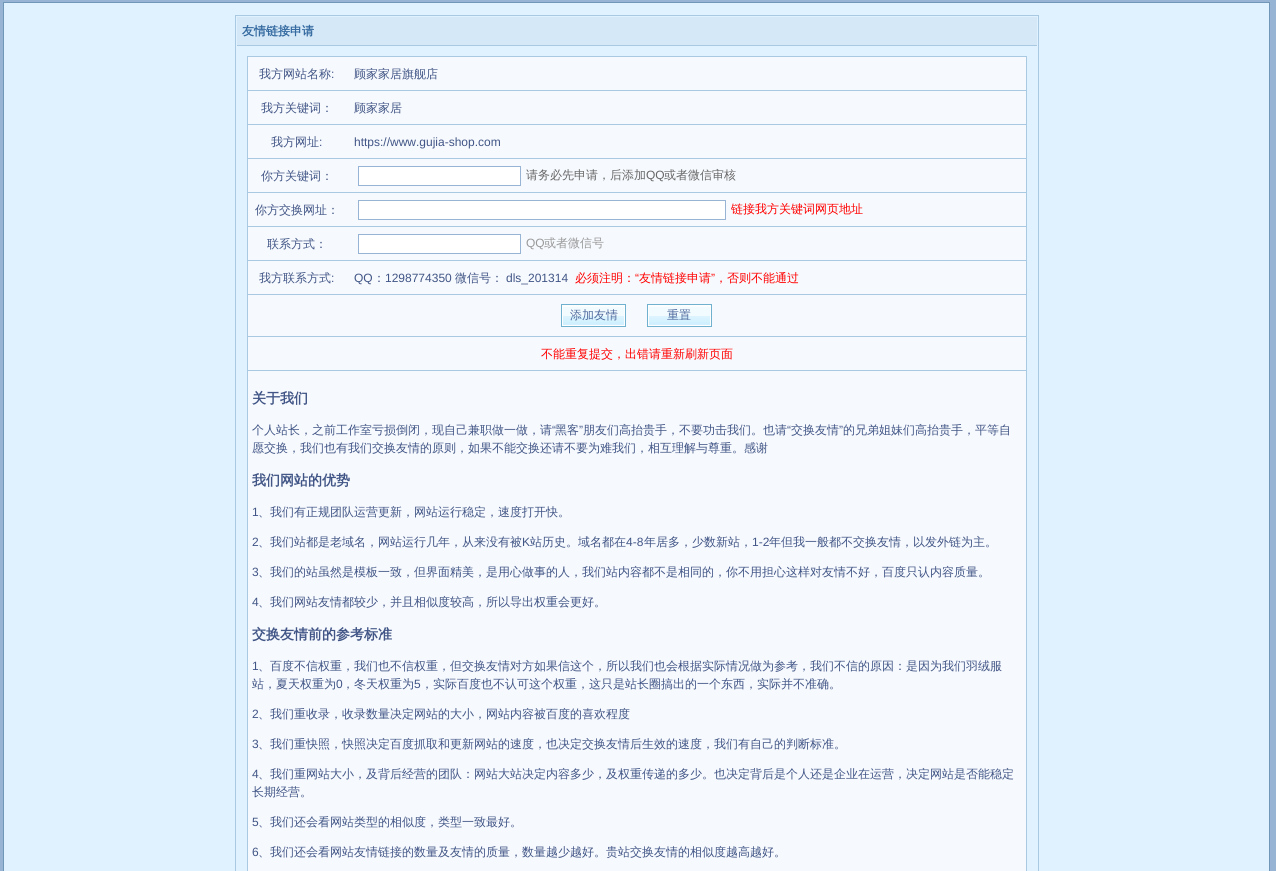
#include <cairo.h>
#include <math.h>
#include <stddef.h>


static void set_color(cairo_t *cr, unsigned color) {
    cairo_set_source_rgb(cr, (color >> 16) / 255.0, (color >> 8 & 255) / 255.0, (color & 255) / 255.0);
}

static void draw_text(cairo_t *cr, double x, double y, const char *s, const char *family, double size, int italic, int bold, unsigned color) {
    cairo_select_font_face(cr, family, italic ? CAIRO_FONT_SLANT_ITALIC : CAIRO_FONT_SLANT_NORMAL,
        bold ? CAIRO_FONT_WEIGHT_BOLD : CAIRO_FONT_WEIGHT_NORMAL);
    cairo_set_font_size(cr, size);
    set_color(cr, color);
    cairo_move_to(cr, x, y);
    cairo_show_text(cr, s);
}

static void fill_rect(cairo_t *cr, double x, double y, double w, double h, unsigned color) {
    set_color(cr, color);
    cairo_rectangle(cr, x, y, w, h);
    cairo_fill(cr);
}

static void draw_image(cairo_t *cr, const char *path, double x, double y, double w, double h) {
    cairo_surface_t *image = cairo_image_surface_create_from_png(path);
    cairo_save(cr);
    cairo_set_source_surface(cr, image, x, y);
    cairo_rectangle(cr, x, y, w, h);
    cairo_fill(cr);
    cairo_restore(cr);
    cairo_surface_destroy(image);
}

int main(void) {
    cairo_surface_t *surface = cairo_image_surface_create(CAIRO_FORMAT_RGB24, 1276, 871);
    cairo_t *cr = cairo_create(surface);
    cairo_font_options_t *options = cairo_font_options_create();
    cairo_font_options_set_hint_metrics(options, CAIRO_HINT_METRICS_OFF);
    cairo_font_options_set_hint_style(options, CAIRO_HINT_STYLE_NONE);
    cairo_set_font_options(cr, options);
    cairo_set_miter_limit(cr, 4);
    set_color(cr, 0x97B4D5);
    cairo_paint(cr);
    set_color(cr, 0xE0F2FF);
    cairo_rectangle(cr, 3.5, 2.5, 1266, 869);
    cairo_fill_preserve(cr);
    set_color(cr, 0x7197B8);
    cairo_set_line_width(cr, 1);
    cairo_stroke(cr);
    cairo_rectangle(cr, 235.5, 15.5, 803, 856);
    set_color(cr, 0xA9C9E2);
    cairo_stroke(cr);
    fill_rect(cr, 237, 17, 800, 28, 0xD4E8F7);
    fill_rect(cr, 237, 45, 800, 1, 0xA9C9E2);
    draw_text(cr, 242, 35, "友情链接申请", "WenQuanYi Zen Hei", 12, 0, 1, 0x356AA0);
    fill_rect(cr, 247, 56, 780, 815, 0xA9C9E2);
    fill_rect(cr, 248, 57, 778, 33, 0xF6F9FD);
    draw_text(cr, 259, 78, "我方网站名称", "WenQuanYi Zen Hei Medium", 12, 0, 0, 0x415586);
    draw_text(cr, 331, 78, ":", "Liberation Sans", 12, 0, 0, 0x415586);
    draw_text(cr, 354, 78, "顾家家居旗舰店", "WenQuanYi Zen Hei Medium", 12, 0, 0, 0x415586);
    fill_rect(cr, 248, 91, 778, 33, 0xF6F9FD);
    draw_text(cr, 261, 112, "我方关键词：", "WenQuanYi Zen Hei Medium", 12, 0, 0, 0x415586);
    draw_text(cr, 354, 112, "顾家家居", "WenQuanYi Zen Hei Medium", 12, 0, 0, 0x415586);
    fill_rect(cr, 248, 125, 778, 33, 0xF6F9FD);
    draw_text(cr, 271, 146, "我方网址", "WenQuanYi Zen Hei Medium", 12, 0, 0, 0x415586);
    draw_text(cr, 319, 146, ":", "Liberation Sans", 12, 0, 0, 0x415586);
    draw_text(cr, 354, 146, "https://www.gujia-shop.com", "Liberation Sans", 12, 0, 0, 0x415586);
    fill_rect(cr, 248, 159, 778, 33, 0xF6F9FD);
    draw_text(cr, 261, 180, "你方关键词：", "WenQuanYi Zen Hei Medium", 12, 0, 0, 0x415586);
    set_color(cr, 0xFFFFFF);
    cairo_rectangle(cr, 358.5, 166.5, 162, 19);
    cairo_fill_preserve(cr);
    set_color(cr, 0x97B4D5);
    cairo_stroke(cr);
    draw_text(cr, 526, 179, "请务必先申请，后添加", "WenQuanYi Zen Hei Medium", 12, 0, 0, 0x666666);
    draw_text(cr, 646, 179, "QQ", "Liberation Sans", 12, 0, 0, 0x666666);
    draw_text(cr, 664, 179, "或者微信审核", "WenQuanYi Zen Hei Medium", 12, 0, 0, 0x666666);
    fill_rect(cr, 248, 193, 778, 33, 0xF6F9FD);
    draw_text(cr, 255, 214, "你方交换网址：", "WenQuanYi Zen Hei Medium", 12, 0, 0, 0x415586);
    set_color(cr, 0xFFFFFF);
    cairo_rectangle(cr, 358.5, 200.5, 367, 19);
    cairo_fill_preserve(cr);
    set_color(cr, 0x97B4D5);
    cairo_stroke(cr);
    draw_text(cr, 731, 213, "链接我方关键词网页地址", "WenQuanYi Zen Hei Medium", 12, 0, 0, 0xFF0000);
    fill_rect(cr, 248, 227, 778, 33, 0xF6F9FD);
    draw_text(cr, 267, 248, "联系方式：", "WenQuanYi Zen Hei Medium", 12, 0, 0, 0x415586);
    set_color(cr, 0xFFFFFF);
    cairo_rectangle(cr, 358.5, 234.5, 162, 19);
    cairo_fill_preserve(cr);
    set_color(cr, 0x97B4D5);
    cairo_stroke(cr);
    draw_text(cr, 526, 247, "QQ", "Liberation Sans", 12, 0, 0, 0x999999);
    draw_text(cr, 544, 247, "或者微信号", "WenQuanYi Zen Hei Medium", 12, 0, 0, 0x999999);
    fill_rect(cr, 248, 261, 778, 33, 0xF6F9FD);
    draw_text(cr, 259, 282, "我方联系方式", "WenQuanYi Zen Hei Medium", 12, 0, 0, 0x415586);
    draw_text(cr, 331, 282, ":", "Liberation Sans", 12, 0, 0, 0x415586);
    draw_text(cr, 354, 282, "QQ", "Liberation Sans", 12, 0, 0, 0x415586);
    draw_text(cr, 373, 282, "：", "WenQuanYi Zen Hei Medium", 12, 0, 0, 0x415586);
    draw_text(cr, 385, 282, "1298774350", "Liberation Sans", 12, 0, 0, 0x415586);
    draw_text(cr, 455, 282, "微信号：", "WenQuanYi Zen Hei Medium", 12, 0, 0, 0x415586);
    draw_text(cr, 506, 282, "dls_201314", "Liberation Sans", 12, 0, 0, 0x415586);
    draw_text(cr, 575, 282, "必须注明：", "WenQuanYi Zen Hei Medium", 12, 0, 0, 0xFF0000);
    draw_text(cr, 635, 282, "“", "Liberation Sans", 12, 0, 0, 0xFF0000);
    draw_text(cr, 639, 282, "友情链接申请", "WenQuanYi Zen Hei Medium", 12, 0, 0, 0xFF0000);
    draw_text(cr, 711, 282, "”", "Liberation Sans", 12, 0, 0, 0xFF0000);
    draw_text(cr, 715, 282, "，否则不能通过", "WenQuanYi Zen Hei Medium", 12, 0, 0, 0xFF0000);
    fill_rect(cr, 248, 295, 778, 41, 0xF6F9FD);
    draw_image(cr, "assets/img1.png", 561, 304, 65, 23);
    draw_text(cr, 570, 319, "添加友情", "WenQuanYi Zen Hei Medium", 12, 0, 0, 0x506B9E);
    draw_image(cr, "assets/img1.png", 647, 304, 65, 23);
    draw_text(cr, 667, 319, "重置", "WenQuanYi Zen Hei Medium", 12, 0, 0, 0x506B9E);
    fill_rect(cr, 248, 337, 778, 33, 0xF6F9FD);
    draw_text(cr, 541, 358, "不能重复提交，出错请重新刷新页面", "WenQuanYi Zen Hei Medium", 12, 0, 0, 0xFF0000);
    fill_rect(cr, 248, 371, 778, 500, 0xF6F9FD);
    draw_text(cr, 252, 403, "关于我们", "WenQuanYi Zen Hei", 14, 0, 1, 0x415586);
    draw_text(cr, 252, 434, "个人站长，之前工作室亏损倒闭，现自己兼职做一做，请", "WenQuanYi Zen Hei Medium", 12, 0, 0, 0x415586);
    draw_text(cr, 552, 434, "“", "Liberation Sans", 12, 0, 0, 0x415586);
    draw_text(cr, 555, 434, "黑客", "WenQuanYi Zen Hei Medium", 12, 0, 0, 0x415586);
    draw_text(cr, 579, 434, "”", "Liberation Sans", 12, 0, 0, 0x415586);
    draw_text(cr, 583, 434, "朋友们高抬贵手，不要功击我们。也请", "WenQuanYi Zen Hei Medium", 12, 0, 0, 0x415586);
    draw_text(cr, 787, 434, "“", "Liberation Sans", 12, 0, 0, 0x415586);
    draw_text(cr, 791, 434, "交换友情", "WenQuanYi Zen Hei Medium", 12, 0, 0, 0x415586);
    draw_text(cr, 839, 434, "”", "Liberation Sans", 12, 0, 0, 0x415586);
    draw_text(cr, 843, 434, "的兄弟姐妹们高抬贵手，平等自", "WenQuanYi Zen Hei Medium", 12, 0, 0, 0x415586);
    draw_text(cr, 252, 452, "愿交换，我们也有我们交换友情的原则，如果不能交换还请不要为难我们，相互理解与尊重。感谢", "WenQuanYi Zen Hei Medium", 12, 0, 0, 0x415586);
    draw_text(cr, 252, 485, "我们网站的优势", "WenQuanYi Zen Hei", 14, 0, 1, 0x415586);
    draw_text(cr, 252, 516, "1", "Liberation Sans", 12, 0, 0, 0x415586);
    draw_text(cr, 258, 516, "、我们有正规团队运营更新，网站运行稳定，速度打开快。", "WenQuanYi Zen Hei Medium", 12, 0, 0, 0x415586);
    draw_text(cr, 252, 546, "2", "Liberation Sans", 12, 0, 0, 0x415586);
    draw_text(cr, 258, 546, "、我们站都是老域名，网站运行几年，从来没有被", "WenQuanYi Zen Hei Medium", 12, 0, 0, 0x415586);
    draw_text(cr, 522, 546, "K", "Liberation Sans", 12, 0, 0, 0x415586);
    draw_text(cr, 530, 546, "站历史。域名都在", "WenQuanYi Zen Hei Medium", 12, 0, 0, 0x415586);
    draw_text(cr, 626, 546, "4-8", "Liberation Sans", 12, 0, 0, 0x415586);
    draw_text(cr, 644, 546, "年居多，少数新站，", "WenQuanYi Zen Hei Medium", 12, 0, 0, 0x415586);
    draw_text(cr, 752, 546, "1-2", "Liberation Sans", 12, 0, 0, 0x415586);
    draw_text(cr, 769, 546, "年但我一般都不交换友情，以发外链为主。", "WenQuanYi Zen Hei Medium", 12, 0, 0, 0x415586);
    draw_text(cr, 252, 576, "3", "Liberation Sans", 12, 0, 0, 0x415586);
    draw_text(cr, 258, 576, "、我们的站虽然是模板一致，但界面精美，是用心做事的人，我们站内容都不是相同的，你不用担心这样对友情不好，百度只认内容质量。", "WenQuanYi Zen Hei Medium", 12, 0, 0, 0x415586);
    draw_text(cr, 252, 606, "4", "Liberation Sans", 12, 0, 0, 0x415586);
    draw_text(cr, 258, 606, "、我们网站友情都较少，并且相似度较高，所以导出权重会更好。", "WenQuanYi Zen Hei Medium", 12, 0, 0, 0x415586);
    draw_text(cr, 252, 639, "交换友情前的参考标准", "WenQuanYi Zen Hei", 14, 0, 1, 0x415586);
    draw_text(cr, 252, 670, "1", "Liberation Sans", 12, 0, 0, 0x415586);
    draw_text(cr, 258, 670, "、百度不信权重，我们也不信权重，但交换友情对方如果信这个，所以我们也会根据实际情况做为参考，我们不信的原因：是因为我们羽绒服", "WenQuanYi Zen Hei Medium", 12, 0, 0, 0x415586);
    draw_text(cr, 252, 688, "站，夏天权重为", "WenQuanYi Zen Hei Medium", 12, 0, 0, 0x415586);
    draw_text(cr, 336, 688, "0", "Liberation Sans", 12, 0, 0, 0x415586);
    draw_text(cr, 342, 688, "，冬天权重为", "WenQuanYi Zen Hei Medium", 12, 0, 0, 0x415586);
    draw_text(cr, 414, 688, "5", "Liberation Sans", 12, 0, 0, 0x415586);
    draw_text(cr, 421, 688, "，实际百度也不认可这个权重，这只是站长圈搞出的一个东西，实际并不准确。", "WenQuanYi Zen Hei Medium", 12, 0, 0, 0x415586);
    draw_text(cr, 252, 718, "2", "Liberation Sans", 12, 0, 0, 0x415586);
    draw_text(cr, 258, 718, "、我们重收录，收录数量决定网站的大小，网站内容被百度的喜欢程度", "WenQuanYi Zen Hei Medium", 12, 0, 0, 0x415586);
    draw_text(cr, 252, 748, "3", "Liberation Sans", 12, 0, 0, 0x415586);
    draw_text(cr, 258, 748, "、我们重快照，快照决定百度抓取和更新网站的速度，也决定交换友情后生效的速度，我们有自己的判断标准。", "WenQuanYi Zen Hei Medium", 12, 0, 0, 0x415586);
    draw_text(cr, 252, 778, "4", "Liberation Sans", 12, 0, 0, 0x415586);
    draw_text(cr, 258, 778, "、我们重网站大小，及背后经营的团队：网站大站决定内容多少，及权重传递的多少。也决定背后是个人还是企业在运营，决定网站是否能稳定", "WenQuanYi Zen Hei Medium", 12, 0, 0, 0x415586);
    draw_text(cr, 252, 796, "长期经营。", "WenQuanYi Zen Hei Medium", 12, 0, 0, 0x415586);
    draw_text(cr, 252, 826, "5", "Liberation Sans", 12, 0, 0, 0x415586);
    draw_text(cr, 258, 826, "、我们还会看网站类型的相似度，类型一致最好。", "WenQuanYi Zen Hei Medium", 12, 0, 0, 0x415586);
    draw_text(cr, 252, 856, "6", "Liberation Sans", 12, 0, 0, 0x415586);
    draw_text(cr, 258, 856, "、我们还会看网站友情链接的数量及友情的质量，数量越少越好。贵站交换友情的相似度越高越好。", "WenQuanYi Zen Hei Medium", 12, 0, 0, 0x415586);
    cairo_surface_write_to_png(surface, "output.png");
    cairo_font_options_destroy(options);
    cairo_destroy(cr);
    cairo_surface_destroy(surface);
    return 0;
}
